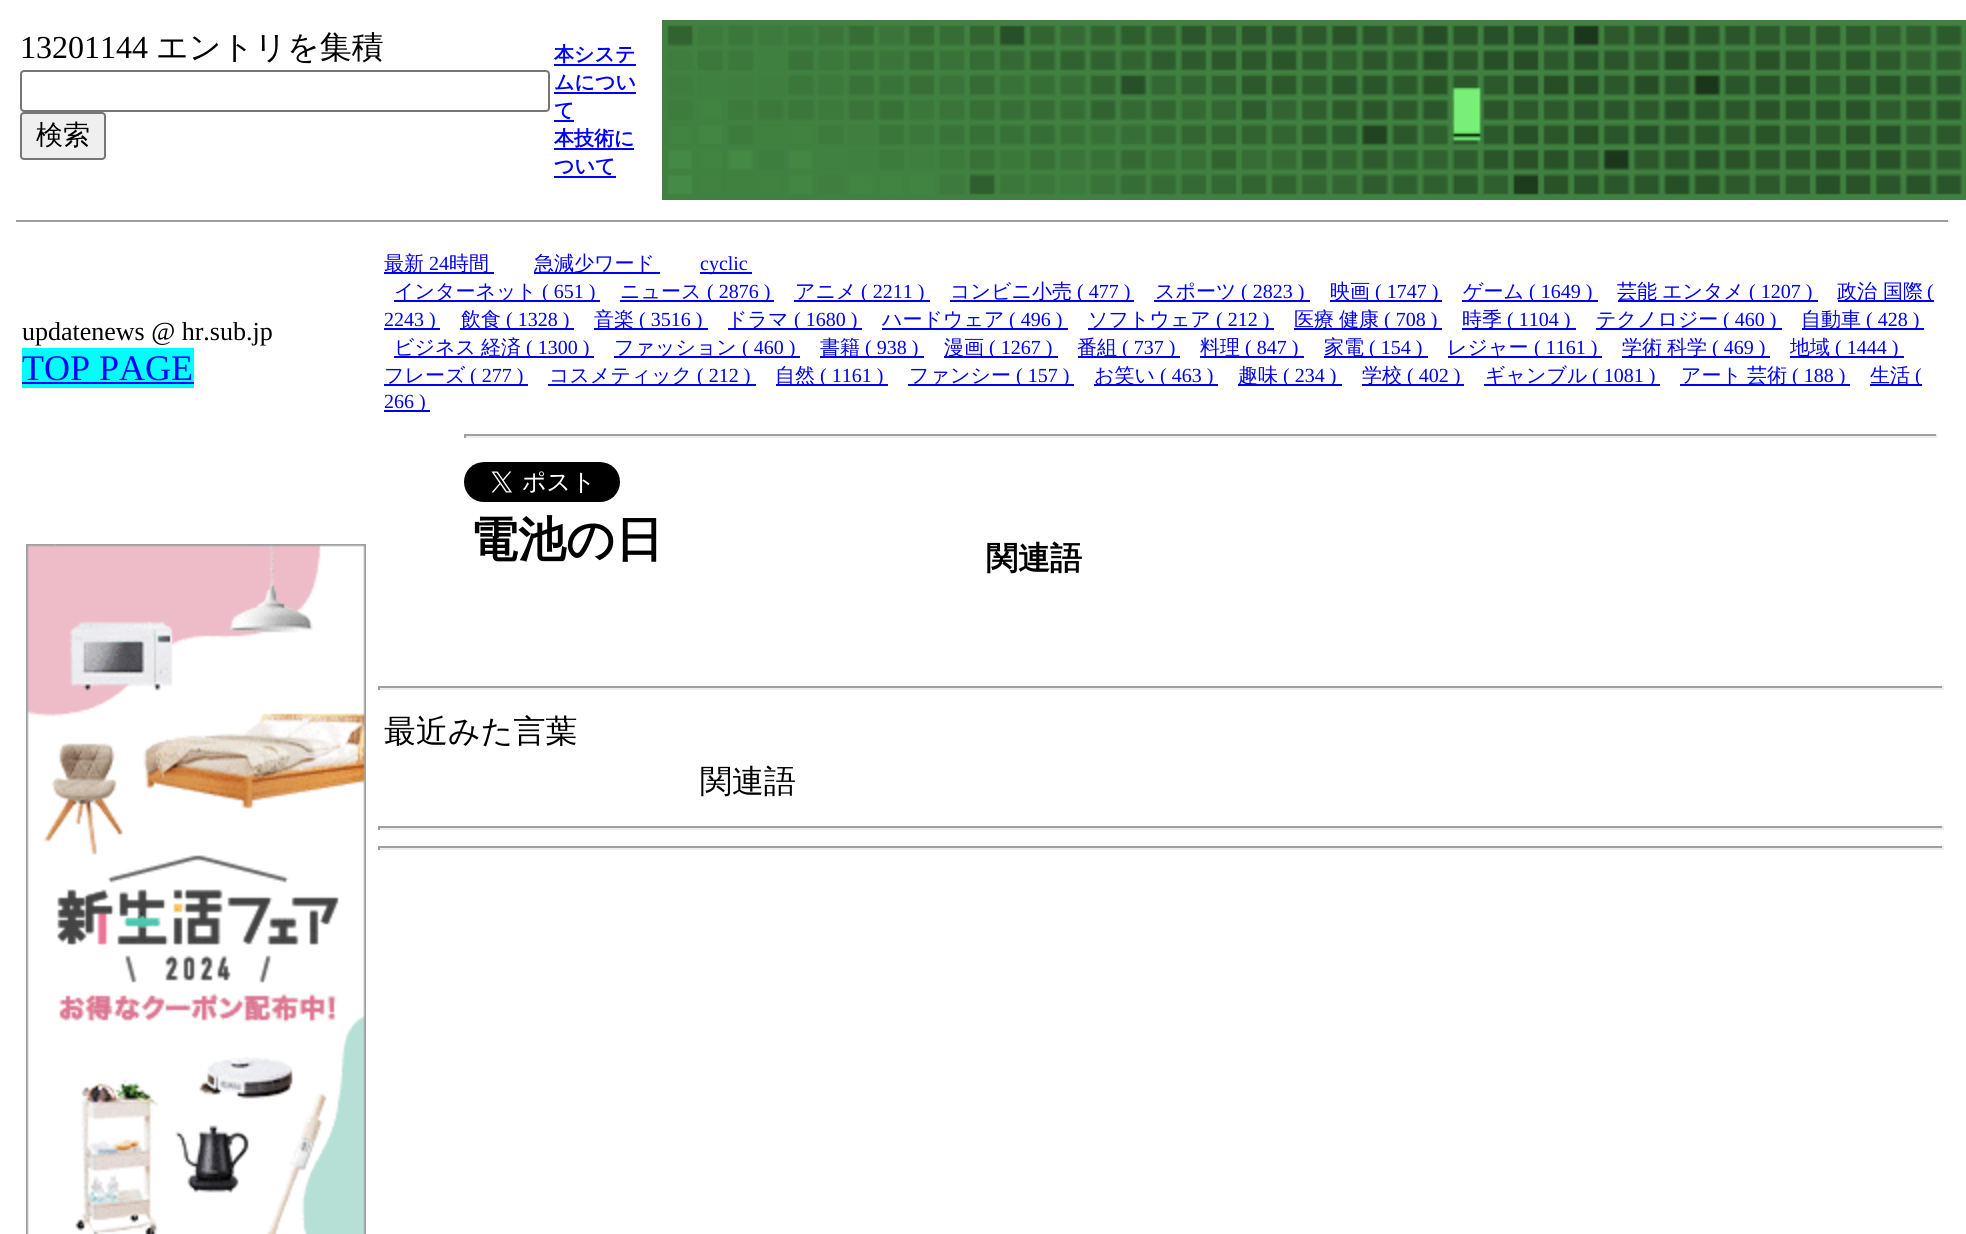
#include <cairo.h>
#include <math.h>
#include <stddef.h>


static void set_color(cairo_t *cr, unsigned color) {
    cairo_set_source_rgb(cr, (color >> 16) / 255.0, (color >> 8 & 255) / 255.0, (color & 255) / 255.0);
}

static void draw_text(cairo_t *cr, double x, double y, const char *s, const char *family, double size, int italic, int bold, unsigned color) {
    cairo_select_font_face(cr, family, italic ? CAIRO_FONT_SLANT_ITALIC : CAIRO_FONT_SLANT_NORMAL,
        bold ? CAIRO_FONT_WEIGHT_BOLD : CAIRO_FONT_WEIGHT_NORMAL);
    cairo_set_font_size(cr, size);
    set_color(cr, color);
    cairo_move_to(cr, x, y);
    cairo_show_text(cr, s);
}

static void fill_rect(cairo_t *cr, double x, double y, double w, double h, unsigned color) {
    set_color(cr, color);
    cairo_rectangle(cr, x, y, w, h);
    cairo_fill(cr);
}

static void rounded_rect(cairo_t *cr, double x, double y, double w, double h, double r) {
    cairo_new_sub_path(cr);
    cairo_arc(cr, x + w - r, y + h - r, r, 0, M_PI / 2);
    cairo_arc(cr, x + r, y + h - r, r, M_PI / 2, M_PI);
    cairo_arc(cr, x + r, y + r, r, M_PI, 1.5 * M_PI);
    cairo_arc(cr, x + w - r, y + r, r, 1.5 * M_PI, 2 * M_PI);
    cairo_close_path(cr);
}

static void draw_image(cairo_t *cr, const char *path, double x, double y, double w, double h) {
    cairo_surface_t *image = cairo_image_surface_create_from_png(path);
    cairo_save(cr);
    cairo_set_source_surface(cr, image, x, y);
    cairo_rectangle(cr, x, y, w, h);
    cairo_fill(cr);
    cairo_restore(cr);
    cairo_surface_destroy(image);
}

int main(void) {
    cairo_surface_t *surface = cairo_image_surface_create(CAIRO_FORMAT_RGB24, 1966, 1234);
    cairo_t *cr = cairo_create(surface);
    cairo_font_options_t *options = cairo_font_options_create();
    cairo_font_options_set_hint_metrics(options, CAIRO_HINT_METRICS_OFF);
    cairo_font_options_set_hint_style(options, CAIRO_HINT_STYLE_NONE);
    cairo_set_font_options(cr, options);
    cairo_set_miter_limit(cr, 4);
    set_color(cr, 0xFFFFFF);
    cairo_paint(cr);
    draw_text(cr, 20, 58, "13201144", "Liberation Serif", 32, 0, 0, 0x000000);
    draw_text(cr, 156, 58, "エントリを集積", "WenQuanYi Zen Hei Medium", 32, 0, 0, 0x000000);
    rounded_rect(cr, 21, 71, 528, 40, 3);
    set_color(cr, 0x767676);
    cairo_stroke(cr);
    set_color(cr, 0xEFEFEF);
    rounded_rect(cr, 21, 113, 84, 46, 3);
    cairo_fill_preserve(cr);
    set_color(cr, 0x767676);
    cairo_stroke(cr);
    draw_text(cr, 36, 144, "検索", "WenQuanYi Zen Hei Medium", 27, 0, 0, 0x000000);
    draw_text(cr, 554, 61, "本システ", "WenQuanYi Zen Hei", 20, 0, 1, 0x0000FF);
    fill_rect(cr, 554, 64, 82, 2, 0x0000FF);
    draw_text(cr, 554, 89, "ムについ", "WenQuanYi Zen Hei", 20, 0, 1, 0x0000FF);
    fill_rect(cr, 554, 92, 82, 2, 0x0000FF);
    draw_text(cr, 554, 117, "て", "WenQuanYi Zen Hei", 20, 0, 1, 0x0000FF);
    fill_rect(cr, 554, 120, 20, 2, 0x0000FF);
    draw_text(cr, 554, 145, "本技術に", "WenQuanYi Zen Hei", 20, 0, 1, 0x0000FF);
    fill_rect(cr, 554, 148, 80, 2, 0x0000FF);
    draw_text(cr, 554, 173, "ついて", "WenQuanYi Zen Hei", 20, 0, 1, 0x0000FF);
    fill_rect(cr, 554, 176, 62, 2, 0x0000FF);
    draw_image(cr, "assets/img1.png", 662, 20, 1304, 180);
    fill_rect(cr, 16, 220, 1934, 2, 0x9F9F9F);
    fill_rect(cr, 1948, 220, 2, 2, 0xEEEEEE);
    draw_text(cr, 22, 340, "updatenews @ hr.sub.jp", "Liberation Serif", 26, 0, 0, 0x000000);
    fill_rect(cr, 22, 348, 172, 40, 0x00FFFF);
    draw_text(cr, 22, 380, "TOP PAGE", "Liberation Serif", 36, 0, 0, 0x0000FF);
    fill_rect(cr, 22, 382, 172, 2, 0x0000FF);
    draw_image(cr, "assets/img2.png", 26, 544, 340, 690);
    fill_rect(cr, 384, 272, 110, 2, 0x0000EE);
    draw_text(cr, 384, 270, "最新", "WenQuanYi Zen Hei Medium", 20, 0, 0, 0x0000EE);
    draw_text(cr, 429, 270, "24", "Liberation Serif", 20, 0, 0, 0x0000EE);
    draw_text(cr, 449, 270, "時間", "WenQuanYi Zen Hei Medium", 20, 0, 0, 0x0000EE);
    fill_rect(cr, 534, 272, 126, 2, 0x0000EE);
    draw_text(cr, 534, 270, "急減少ワード", "WenQuanYi Zen Hei Medium", 20, 0, 0, 0x0000EE);
    fill_rect(cr, 700, 272, 52, 2, 0x0000EE);
    draw_text(cr, 700, 270, "cyclic", "Liberation Serif", 20, 0, 0, 0x0000EE);
    fill_rect(cr, 394, 300, 206, 2, 0x0000EE);
    draw_text(cr, 394, 298, "インターネット", "WenQuanYi Zen Hei Medium", 20, 0, 0, 0x0000EE);
    draw_text(cr, 542, 298, "( 651 )", "Liberation Serif", 20, 0, 0, 0x0000EE);
    draw_text(cr, 620, 298, "ニュース", "WenQuanYi Zen Hei Medium", 20, 0, 0, 0x0000EE);
    fill_rect(cr, 620, 300, 154, 2, 0x0000EE);
    draw_text(cr, 707, 298, "( 2876 )", "Liberation Serif", 20, 0, 0, 0x0000EE);
    draw_text(cr, 795, 298, "アニメ", "WenQuanYi Zen Hei Medium", 20, 0, 0, 0x0000EE);
    fill_rect(cr, 794, 300, 136, 2, 0x0000EE);
    draw_text(cr, 861, 298, "( 2211 )", "Liberation Serif", 20, 0, 0, 0x0000EE);
    fill_rect(cr, 950, 300, 184, 2, 0x0000EE);
    draw_text(cr, 950, 298, "コンビニ小売", "WenQuanYi Zen Hei Medium", 20, 0, 0, 0x0000EE);
    draw_text(cr, 1077, 298, "( 477 )", "Liberation Serif", 20, 0, 0, 0x0000EE);
    fill_rect(cr, 1154, 300, 156, 2, 0x0000EE);
    draw_text(cr, 1155, 298, "スポーツ", "WenQuanYi Zen Hei Medium", 20, 0, 0, 0x0000EE);
    draw_text(cr, 1241, 298, "( 2823 )", "Liberation Serif", 20, 0, 0, 0x0000EE);
    fill_rect(cr, 1330, 300, 112, 2, 0x0000EE);
    draw_text(cr, 1330, 298, "映画", "WenQuanYi Zen Hei Medium", 20, 0, 0, 0x0000EE);
    draw_text(cr, 1375, 298, "( 1747 )", "Liberation Serif", 20, 0, 0, 0x0000EE);
    fill_rect(cr, 1462, 300, 136, 2, 0x0000EE);
    draw_text(cr, 1463, 298, "ゲーム", "WenQuanYi Zen Hei Medium", 20, 0, 0, 0x0000EE);
    draw_text(cr, 1529, 298, "( 1649 )", "Liberation Serif", 20, 0, 0, 0x0000EE);
    fill_rect(cr, 1618, 300, 200, 2, 0x0000EE);
    draw_text(cr, 1617, 298, "芸能", "WenQuanYi Zen Hei Medium", 20, 0, 0, 0x0000EE);
    draw_text(cr, 1662, 298, "エンタメ", "WenQuanYi Zen Hei Medium", 20, 0, 0, 0x0000EE);
    draw_text(cr, 1749, 298, "( 1207 )", "Liberation Serif", 20, 0, 0, 0x0000EE);
    fill_rect(cr, 1838, 300, 96, 2, 0x0000EE);
    draw_text(cr, 1837, 298, "政治 国際", "WenQuanYi Zen Hei Medium", 20, 0, 0, 0x0000EE);
    draw_text(cr, 1927, 298, "(", "Liberation Serif", 20, 0, 0, 0x0000EE);
    fill_rect(cr, 384, 328, 56, 2, 0x0000EE);
    draw_text(cr, 384, 326, "2243 )", "Liberation Serif", 20, 0, 0, 0x0000EE);
    fill_rect(cr, 460, 328, 114, 2, 0x0000EE);
    draw_text(cr, 461, 326, "飲食", "WenQuanYi Zen Hei Medium", 20, 0, 0, 0x0000EE);
    draw_text(cr, 506, 326, "( 1328 )", "Liberation Serif", 20, 0, 0, 0x0000EE);
    fill_rect(cr, 594, 328, 114, 2, 0x0000EE);
    draw_text(cr, 594, 326, "音楽", "WenQuanYi Zen Hei Medium", 20, 0, 0, 0x0000EE);
    draw_text(cr, 639, 326, "( 3516 )", "Liberation Serif", 20, 0, 0, 0x0000EE);
    fill_rect(cr, 728, 328, 134, 2, 0x0000EE);
    draw_text(cr, 727, 326, "ドラマ", "WenQuanYi Zen Hei Medium", 20, 0, 0, 0x0000EE);
    draw_text(cr, 794, 326, "( 1680 )", "Liberation Serif", 20, 0, 0, 0x0000EE);
    fill_rect(cr, 882, 328, 186, 2, 0x0000EE);
    draw_text(cr, 882, 326, "ハードウェア", "WenQuanYi Zen Hei Medium", 20, 0, 0, 0x0000EE);
    draw_text(cr, 1009, 326, "( 496 )", "Liberation Serif", 20, 0, 0, 0x0000EE);
    fill_rect(cr, 1088, 328, 186, 2, 0x0000EE);
    draw_text(cr, 1088, 326, "ソフトウェア", "WenQuanYi Zen Hei Medium", 20, 0, 0, 0x0000EE);
    draw_text(cr, 1216, 326, "( 212 )", "Liberation Serif", 20, 0, 0, 0x0000EE);
    fill_rect(cr, 1294, 328, 148, 2, 0x0000EE);
    draw_text(cr, 1294, 326, "医療", "WenQuanYi Zen Hei Medium", 20, 0, 0, 0x0000EE);
    draw_text(cr, 1339, 326, "健康", "WenQuanYi Zen Hei Medium", 20, 0, 0, 0x0000EE);
    draw_text(cr, 1384, 326, "( 708 )", "Liberation Serif", 20, 0, 0, 0x0000EE);
    fill_rect(cr, 1462, 328, 114, 2, 0x0000EE);
    draw_text(cr, 1462, 326, "時季", "WenQuanYi Zen Hei Medium", 20, 0, 0, 0x0000EE);
    draw_text(cr, 1507, 326, "( 1104 )", "Liberation Serif", 20, 0, 0, 0x0000EE);
    fill_rect(cr, 1596, 328, 186, 2, 0x0000EE);
    draw_text(cr, 1596, 326, "テクノロジー", "WenQuanYi Zen Hei Medium", 20, 0, 0, 0x0000EE);
    draw_text(cr, 1723, 326, "( 460 )", "Liberation Serif", 20, 0, 0, 0x0000EE);
    fill_rect(cr, 1802, 328, 122, 2, 0x0000EE);
    draw_text(cr, 1801, 326, "自動車", "WenQuanYi Zen Hei Medium", 20, 0, 0, 0x0000EE);
    draw_text(cr, 1866, 326, "( 428 )", "Liberation Serif", 20, 0, 0, 0x0000EE);
    fill_rect(cr, 394, 356, 200, 2, 0x0000EE);
    draw_text(cr, 394, 354, "ビジネス", "WenQuanYi Zen Hei Medium", 20, 0, 0, 0x0000EE);
    draw_text(cr, 481, 354, "経済", "WenQuanYi Zen Hei Medium", 20, 0, 0, 0x0000EE);
    draw_text(cr, 526, 354, "( 1300 )", "Liberation Serif", 20, 0, 0, 0x0000EE);
    fill_rect(cr, 614, 356, 186, 2, 0x0000EE);
    draw_text(cr, 614, 354, "ファッション", "WenQuanYi Zen Hei Medium", 20, 0, 0, 0x0000EE);
    draw_text(cr, 742, 354, "( 460 )", "Liberation Serif", 20, 0, 0, 0x0000EE);
    fill_rect(cr, 820, 356, 104, 2, 0x0000EE);
    draw_text(cr, 820, 354, "書籍", "WenQuanYi Zen Hei Medium", 20, 0, 0, 0x0000EE);
    draw_text(cr, 865, 354, "( 938 )", "Liberation Serif", 20, 0, 0, 0x0000EE);
    fill_rect(cr, 944, 356, 114, 2, 0x0000EE);
    draw_text(cr, 944, 354, "漫画", "WenQuanYi Zen Hei Medium", 20, 0, 0, 0x0000EE);
    draw_text(cr, 989, 354, "( 1267 )", "Liberation Serif", 20, 0, 0, 0x0000EE);
    fill_rect(cr, 1078, 356, 102, 2, 0x0000EE);
    draw_text(cr, 1077, 354, "番組", "WenQuanYi Zen Hei Medium", 20, 0, 0, 0x0000EE);
    draw_text(cr, 1122, 354, "( 737 )", "Liberation Serif", 20, 0, 0, 0x0000EE);
    fill_rect(cr, 1200, 356, 104, 2, 0x0000EE);
    draw_text(cr, 1200, 354, "料理", "WenQuanYi Zen Hei Medium", 20, 0, 0, 0x0000EE);
    draw_text(cr, 1245, 354, "( 847 )", "Liberation Serif", 20, 0, 0, 0x0000EE);
    fill_rect(cr, 1324, 356, 104, 2, 0x0000EE);
    draw_text(cr, 1324, 354, "家電", "WenQuanYi Zen Hei Medium", 20, 0, 0, 0x0000EE);
    draw_text(cr, 1369, 354, "( 154 )", "Liberation Serif", 20, 0, 0, 0x0000EE);
    fill_rect(cr, 1448, 356, 154, 2, 0x0000EE);
    draw_text(cr, 1447, 354, "レジャー", "WenQuanYi Zen Hei Medium", 20, 0, 0, 0x0000EE);
    draw_text(cr, 1534, 354, "( 1161 )", "Liberation Serif", 20, 0, 0, 0x0000EE);
    fill_rect(cr, 1622, 356, 148, 2, 0x0000EE);
    draw_text(cr, 1622, 354, "学術", "WenQuanYi Zen Hei Medium", 20, 0, 0, 0x0000EE);
    draw_text(cr, 1667, 354, "科学", "WenQuanYi Zen Hei Medium", 20, 0, 0, 0x0000EE);
    draw_text(cr, 1712, 354, "( 469 )", "Liberation Serif", 20, 0, 0, 0x0000EE);
    fill_rect(cr, 1790, 356, 114, 2, 0x0000EE);
    draw_text(cr, 1790, 354, "地域", "WenQuanYi Zen Hei Medium", 20, 0, 0, 0x0000EE);
    draw_text(cr, 1835, 354, "( 1444 )", "Liberation Serif", 20, 0, 0, 0x0000EE);
    draw_text(cr, 384, 382, "フレーズ", "WenQuanYi Zen Hei Medium", 20, 0, 0, 0x0000EE);
    fill_rect(cr, 384, 384, 144, 2, 0x0000EE);
    draw_text(cr, 470, 382, "( 277 )", "Liberation Serif", 20, 0, 0, 0x0000EE);
    fill_rect(cr, 548, 384, 208, 2, 0x0000EE);
    draw_text(cr, 549, 382, "コスメティック", "WenQuanYi Zen Hei Medium", 20, 0, 0, 0x0000EE);
    draw_text(cr, 697, 382, "( 212 )", "Liberation Serif", 20, 0, 0, 0x0000EE);
    fill_rect(cr, 776, 384, 112, 2, 0x0000EE);
    draw_text(cr, 775, 382, "自然", "WenQuanYi Zen Hei Medium", 20, 0, 0, 0x0000EE);
    draw_text(cr, 820, 382, "( 1161 )", "Liberation Serif", 20, 0, 0, 0x0000EE);
    draw_text(cr, 909, 382, "ファンシー", "WenQuanYi Zen Hei Medium", 20, 0, 0, 0x0000EE);
    fill_rect(cr, 908, 384, 166, 2, 0x0000EE);
    draw_text(cr, 1016, 382, "( 157 )", "Liberation Serif", 20, 0, 0, 0x0000EE);
    fill_rect(cr, 1094, 384, 124, 2, 0x0000EE);
    draw_text(cr, 1094, 382, "お笑い", "WenQuanYi Zen Hei Medium", 20, 0, 0, 0x0000EE);
    draw_text(cr, 1160, 382, "( 463 )", "Liberation Serif", 20, 0, 0, 0x0000EE);
    fill_rect(cr, 1238, 384, 104, 2, 0x0000EE);
    draw_text(cr, 1238, 382, "趣味", "WenQuanYi Zen Hei Medium", 20, 0, 0, 0x0000EE);
    draw_text(cr, 1283, 382, "( 234 )", "Liberation Serif", 20, 0, 0, 0x0000EE);
    fill_rect(cr, 1362, 384, 102, 2, 0x0000EE);
    draw_text(cr, 1362, 382, "学校", "WenQuanYi Zen Hei Medium", 20, 0, 0, 0x0000EE);
    draw_text(cr, 1407, 382, "( 402 )", "Liberation Serif", 20, 0, 0, 0x0000EE);
    fill_rect(cr, 1484, 384, 176, 2, 0x0000EE);
    draw_text(cr, 1485, 382, "ギャンブル", "WenQuanYi Zen Hei Medium", 20, 0, 0, 0x0000EE);
    draw_text(cr, 1592, 382, "( 1081 )", "Liberation Serif", 20, 0, 0, 0x0000EE);
    fill_rect(cr, 1680, 384, 170, 2, 0x0000EE);
    draw_text(cr, 1681, 382, "アート", "WenQuanYi Zen Hei Medium", 20, 0, 0, 0x0000EE);
    draw_text(cr, 1747, 382, "芸術", "WenQuanYi Zen Hei Medium", 20, 0, 0, 0x0000EE);
    draw_text(cr, 1792, 382, "( 188 )", "Liberation Serif", 20, 0, 0, 0x0000EE);
    fill_rect(cr, 1870, 384, 52, 2, 0x0000EE);
    draw_text(cr, 1870, 382, "生活", "WenQuanYi Zen Hei Medium", 20, 0, 0, 0x0000EE);
    draw_text(cr, 1915, 382, "(", "Liberation Serif", 20, 0, 0, 0x0000EE);
    fill_rect(cr, 384, 410, 46, 2, 0x0000EE);
    draw_text(cr, 384, 408, "266 )", "Liberation Serif", 20, 0, 0, 0x0000EE);
    fill_rect(cr, 464, 434, 1474, 2, 0x9F9F9F);
    fill_rect(cr, 1936, 434, 2, 4, 0xEEEEEE);
    fill_rect(cr, 464, 436, 1474, 2, 0xEEEEEE);
    fill_rect(cr, 464, 434, 2, 4, 0x9F9F9F);
    draw_image(cr, "assets/img3.png", 464, 462, 156, 40);
    draw_text(cr, 470, 556, "電池の日", "WenQuanYi Zen Hei", 48, 0, 1, 0x000000);
    draw_text(cr, 986, 569, "関連語", "WenQuanYi Zen Hei", 32, 0, 1, 0x000000);
    fill_rect(cr, 378, 686, 1566, 2, 0x9F9F9F);
    fill_rect(cr, 1942, 686, 2, 4, 0xEEEEEE);
    fill_rect(cr, 378, 688, 1566, 2, 0xEEEEEE);
    fill_rect(cr, 378, 686, 2, 4, 0x9F9F9F);
    draw_text(cr, 384, 742, "最近みた言葉", "WenQuanYi Zen Hei Medium", 32, 0, 0, 0x000000);
    draw_text(cr, 700, 792, "関連語", "WenQuanYi Zen Hei Medium", 32, 0, 0, 0x000000);
    fill_rect(cr, 378, 826, 1566, 2, 0x9F9F9F);
    fill_rect(cr, 1942, 826, 2, 4, 0xEEEEEE);
    fill_rect(cr, 378, 828, 1566, 2, 0xEEEEEE);
    fill_rect(cr, 378, 826, 2, 4, 0x9F9F9F);
    fill_rect(cr, 378, 846, 1566, 2, 0x9F9F9F);
    fill_rect(cr, 1942, 846, 2, 4, 0xEEEEEE);
    fill_rect(cr, 378, 848, 1566, 2, 0xEEEEEE);
    fill_rect(cr, 378, 846, 2, 4, 0x9F9F9F);
    cairo_surface_write_to_png(surface, "output.png");
    cairo_font_options_destroy(options);
    cairo_destroy(cr);
    cairo_surface_destroy(surface);
    return 0;
}
